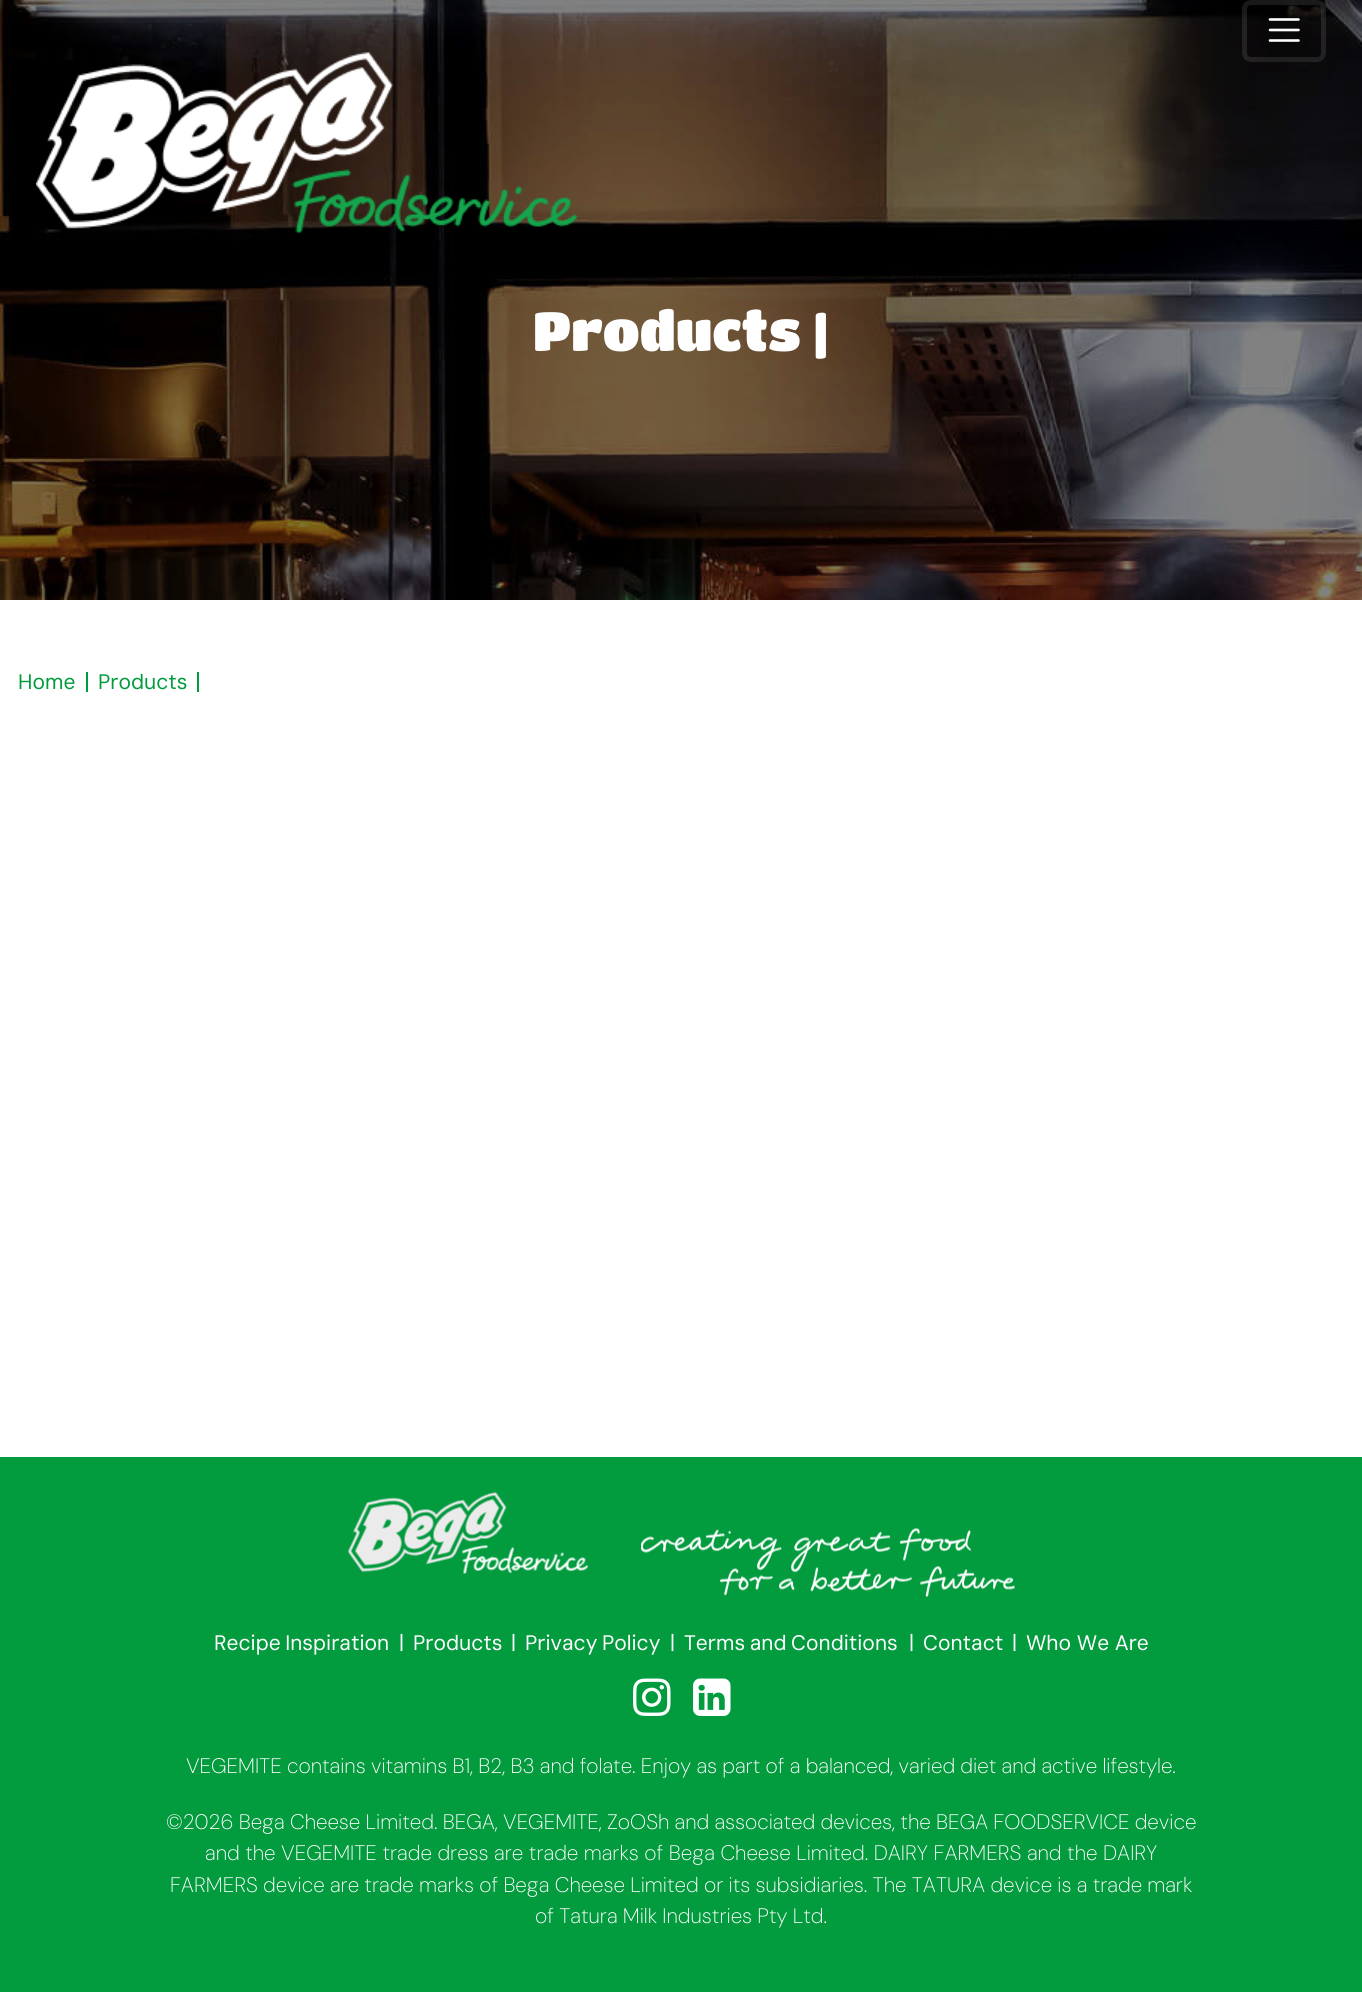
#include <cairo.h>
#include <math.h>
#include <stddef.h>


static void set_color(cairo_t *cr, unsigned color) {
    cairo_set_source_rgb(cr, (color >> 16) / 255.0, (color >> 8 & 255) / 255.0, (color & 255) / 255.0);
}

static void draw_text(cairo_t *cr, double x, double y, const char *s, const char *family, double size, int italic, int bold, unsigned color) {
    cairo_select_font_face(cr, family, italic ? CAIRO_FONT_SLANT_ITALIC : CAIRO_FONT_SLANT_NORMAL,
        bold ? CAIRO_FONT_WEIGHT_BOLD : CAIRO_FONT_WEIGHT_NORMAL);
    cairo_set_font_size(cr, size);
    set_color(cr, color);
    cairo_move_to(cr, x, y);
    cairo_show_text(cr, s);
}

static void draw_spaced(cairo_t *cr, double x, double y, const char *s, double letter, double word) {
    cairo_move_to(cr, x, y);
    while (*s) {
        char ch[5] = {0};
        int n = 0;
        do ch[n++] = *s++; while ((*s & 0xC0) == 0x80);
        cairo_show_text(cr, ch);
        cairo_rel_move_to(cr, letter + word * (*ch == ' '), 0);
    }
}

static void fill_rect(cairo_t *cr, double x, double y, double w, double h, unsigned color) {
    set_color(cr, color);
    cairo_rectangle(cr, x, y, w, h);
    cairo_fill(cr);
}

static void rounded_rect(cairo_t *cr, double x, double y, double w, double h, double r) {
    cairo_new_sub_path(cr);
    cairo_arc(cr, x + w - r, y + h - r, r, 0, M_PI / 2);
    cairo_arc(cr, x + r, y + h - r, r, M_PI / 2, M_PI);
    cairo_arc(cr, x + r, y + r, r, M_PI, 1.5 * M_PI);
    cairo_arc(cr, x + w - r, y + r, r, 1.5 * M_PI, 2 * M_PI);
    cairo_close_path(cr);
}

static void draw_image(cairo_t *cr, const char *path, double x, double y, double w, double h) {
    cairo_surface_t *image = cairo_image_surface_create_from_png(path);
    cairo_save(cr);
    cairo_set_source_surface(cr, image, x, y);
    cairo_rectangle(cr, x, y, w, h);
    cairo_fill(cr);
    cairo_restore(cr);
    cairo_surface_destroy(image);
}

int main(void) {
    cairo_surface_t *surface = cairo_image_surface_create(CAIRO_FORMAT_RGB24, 1362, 1992);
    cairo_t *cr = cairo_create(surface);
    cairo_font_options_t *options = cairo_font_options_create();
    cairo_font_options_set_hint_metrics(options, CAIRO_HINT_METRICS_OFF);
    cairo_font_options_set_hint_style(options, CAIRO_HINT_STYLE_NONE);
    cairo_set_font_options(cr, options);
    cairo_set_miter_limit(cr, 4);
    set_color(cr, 0xFFFFFF);
    cairo_paint(cr);
    draw_image(cr, "assets/img2.png", 0, 0, 1362, 600);
    rounded_rect(cr, 1244.5, 2.5, 79, 57, 6.5);
    cairo_set_source_rgba(cr, 1, 1, 1, 0.1);
    cairo_set_line_width(cr, 5);
    cairo_stroke(cr);
    cairo_new_path(cr);
    cairo_move_to(cr, 1270, 19.5);
    cairo_line_to(cr, 1298.5, 19.5);
    cairo_move_to(cr, 1270, 30);
    cairo_line_to(cr, 1298.5, 30);
    cairo_move_to(cr, 1270, 40.5);
    cairo_line_to(cr, 1298.5, 40.5);
    set_color(cr, 0xFFFFFF);
    cairo_set_line_width(cr, 2.6);
    cairo_set_line_cap(cr, CAIRO_LINE_CAP_ROUND);
    cairo_stroke(cr);
    draw_image(cr, "assets/img1.png", 36, 52, 542, 181);
    draw_text(cr, 533, 351, "Products |", "Titan One", 54, 0, 0, 0xFFFFFF);
    draw_text(cr, 18, 689, "Home", "DM Sans", 21, 0, 0, 0x009B3D);
    fill_rect(cr, 86, 672, 2, 20, 0x009B3D);
    draw_text(cr, 98, 689, "Products", "DM Sans", 21, 0, 0, 0x009B3D);
    fill_rect(cr, 197, 672, 2, 20, 0x009B3D);
    fill_rect(cr, 0, 1457, 1362, 535, 0x029B3E);
    draw_image(cr, "assets/img3.png", 348, 1492, 241, 82);
    draw_image(cr, "assets/img4.png", 641, 1528, 375, 69);
    set_color(cr, 0xFFFFFF);
    draw_spaced(cr, 214, 1650, "Recipe Inspiration", 0, -1);
    draw_text(cr, 399, 1649, "|", "DM Sans", 21, 0, 0, 0xFFFFFF);
    draw_text(cr, 413, 1650, "Products", "DM Sans", 21, 0, 0, 0xFFFFFF);
    draw_text(cr, 511, 1649, "|", "DM Sans", 21, 0, 0, 0xFFFFFF);
    draw_spaced(cr, 525, 1650, "Privacy Policy", 0, -1);
    draw_text(cr, 670, 1649, "|", "DM Sans", 21, 0, 0, 0xFFFFFF);
    draw_spaced(cr, 684, 1650, "Terms and Conditions", 0, -1);
    draw_text(cr, 909, 1649, "|", "DM Sans", 21, 0, 0, 0xFFFFFF);
    draw_text(cr, 923, 1650, "Contact", "DM Sans", 21, 0, 0, 0xFFFFFF);
    draw_text(cr, 1012, 1649, "|", "DM Sans", 21, 0, 0, 0xFFFFFF);
    draw_text(cr, 1026, 1650, "Who We Are", "DM Sans", 21, 0, 0, 0xFFFFFF);
    draw_image(cr, "assets/img5.png", 633, 1678, 38, 38);
    draw_image(cr, "assets/img6.png", 693, 1678, 38, 38);
    draw_text(cr, 186, 1773, "VEGEMITE contains vitamins B1, B2, B3 and folate. Enjoy as part of a balanced, varied diet and active lifestyle.", "DM Sans ExtraLight", 21, 0, 0, 0xFFFFFF);
    draw_text(cr, 166, 1829, "©2026 Bega Cheese Limited. BEGA, VEGEMITE, ZoOSh and associated devices, the BEGA FOODSERVICE device", "DM Sans ExtraLight", 21, 0, 0, 0xFFFFFF);
    draw_spaced(cr, 205, 1860, "and the VEGEMITE trade dress are trade marks of Bega Cheese Limited. DAIRY FARMERS and the DAIRY", 0, 0.3);
    draw_text(cr, 170, 1892, "FARMERS device are trade marks of Bega Cheese Limited or its subsidiaries. The TATURA device is a trade mark", "DM Sans ExtraLight", 21, 0, 0, 0xFFFFFF);
    draw_text(cr, 535, 1923, "of Tatura Milk Industries Pty Ltd.", "DM Sans ExtraLight", 21, 0, 0, 0xFFFFFF);
    cairo_surface_write_to_png(surface, "output.png");
    cairo_font_options_destroy(options);
    cairo_destroy(cr);
    cairo_surface_destroy(surface);
    return 0;
}
